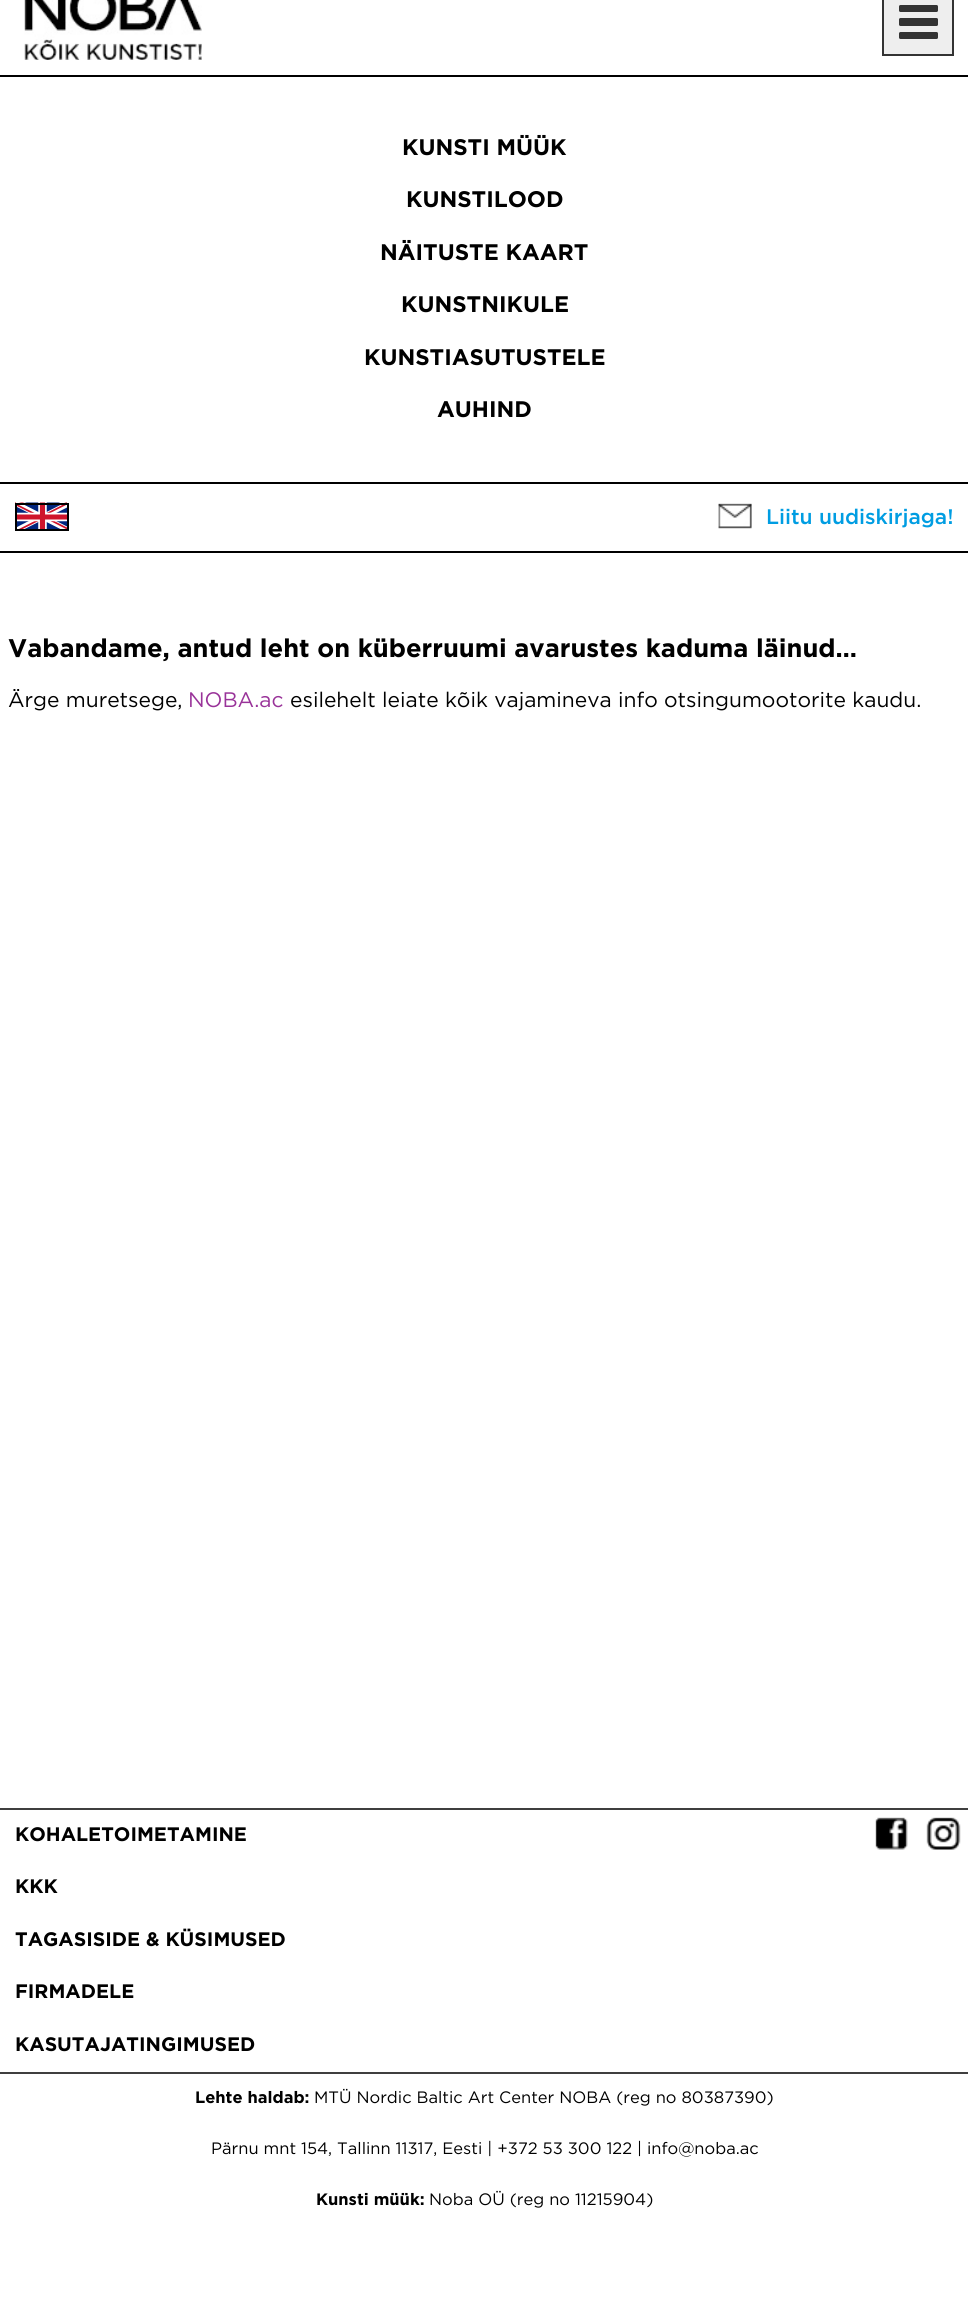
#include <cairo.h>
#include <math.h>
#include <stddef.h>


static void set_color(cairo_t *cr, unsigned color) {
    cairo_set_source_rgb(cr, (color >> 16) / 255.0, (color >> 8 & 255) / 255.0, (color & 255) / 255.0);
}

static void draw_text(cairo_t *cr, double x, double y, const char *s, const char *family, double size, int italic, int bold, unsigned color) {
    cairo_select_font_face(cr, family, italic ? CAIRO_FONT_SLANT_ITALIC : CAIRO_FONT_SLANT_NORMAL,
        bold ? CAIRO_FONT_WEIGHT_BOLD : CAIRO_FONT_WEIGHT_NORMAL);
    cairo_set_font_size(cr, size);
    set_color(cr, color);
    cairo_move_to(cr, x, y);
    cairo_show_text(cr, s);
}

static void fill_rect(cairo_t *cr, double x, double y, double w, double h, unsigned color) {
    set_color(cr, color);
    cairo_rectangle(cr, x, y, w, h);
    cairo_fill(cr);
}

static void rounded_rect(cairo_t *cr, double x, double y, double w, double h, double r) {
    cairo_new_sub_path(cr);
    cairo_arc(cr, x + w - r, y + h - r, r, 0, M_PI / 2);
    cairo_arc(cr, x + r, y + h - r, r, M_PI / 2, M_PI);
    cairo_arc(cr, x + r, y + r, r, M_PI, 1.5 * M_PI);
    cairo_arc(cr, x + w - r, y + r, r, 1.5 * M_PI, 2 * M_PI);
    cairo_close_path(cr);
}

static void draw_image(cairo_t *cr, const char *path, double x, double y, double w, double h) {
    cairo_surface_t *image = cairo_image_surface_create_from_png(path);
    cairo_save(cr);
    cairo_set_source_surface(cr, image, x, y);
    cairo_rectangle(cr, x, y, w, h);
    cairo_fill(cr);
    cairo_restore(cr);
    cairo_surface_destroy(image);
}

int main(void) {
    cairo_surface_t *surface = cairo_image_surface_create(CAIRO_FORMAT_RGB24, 968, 2307);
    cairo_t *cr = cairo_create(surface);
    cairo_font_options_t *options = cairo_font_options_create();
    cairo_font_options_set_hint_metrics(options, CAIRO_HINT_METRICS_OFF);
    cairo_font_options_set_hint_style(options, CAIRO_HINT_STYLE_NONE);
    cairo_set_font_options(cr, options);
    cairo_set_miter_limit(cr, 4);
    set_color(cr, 0xFFFFFF);
    cairo_paint(cr);
    fill_rect(cr, 0, 75, 968, 2, 0x000000);
    draw_image(cr, "assets/img1.png", 24, 0, 178, 60);
    set_color(cr, 0xEEEEEE);
    cairo_rectangle(cr, 883, -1, 70, 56);
    cairo_fill_preserve(cr);
    set_color(cr, 0x333333);
    cairo_stroke(cr);
    rounded_rect(cr, 899, 5, 39, 7, 1.5);
    cairo_fill(cr);
    rounded_rect(cr, 899, 18, 39, 8, 1.5);
    cairo_fill(cr);
    rounded_rect(cr, 899, 32, 39, 7, 1.5);
    cairo_fill(cr);
    fill_rect(cr, 0, 482, 968, 2, 0x000000);
    draw_text(cr, 402, 155, "KUNSTI MÜÜK", "Gotham", 22.5, 0, 1, 0x000000);
    draw_text(cr, 406, 207, "KUNSTILOOD", "Gotham", 22.5, 0, 1, 0x000000);
    draw_text(cr, 380, 260, "NÄITUSTE KAART", "Gotham", 22.5, 0, 1, 0x000000);
    draw_text(cr, 401, 312, "KUNSTNIKULE", "Gotham", 22.5, 0, 1, 0x000000);
    draw_text(cr, 364, 365, "KUNSTIASUTUSTELE", "Gotham", 22.5, 0, 1, 0x000000);
    draw_text(cr, 437, 417, "AUHIND", "Gotham", 22.5, 0, 1, 0x000000);
    fill_rect(cr, 0, 551, 968, 2, 0x000000);
    draw_image(cr, "assets/img2.png", 15, 502, 54, 27);
    cairo_rectangle(cr, 16, 504, 52, 26);
    cairo_stroke(cr);
    draw_image(cr, "assets/img3.png", 718, 503, 34, 26);
    draw_text(cr, 766, 524, "Liitu uudiskirjaga!", "Gotham Medium", 21, 0, 0, 0x009DE2);
    draw_text(cr, 8, 657, "Vabandame, antud leht on küberruumi avarustes kaduma läinud…", "Gotham", 25.5, 0, 1, 0x000000);
    draw_text(cr, 8, 707, "Ärge muretsege,", "Gotham", 21, 0, 0, 0x000000);
    draw_text(cr, 188, 707, "NOBA.ac", "Gotham", 21, 0, 0, 0x993399);
    draw_text(cr, 290, 707, "esilehelt leiate kõik vajamineva info otsingumootorite kaudu.", "Gotham", 21, 0, 0, 0x000000);
    fill_rect(cr, 0, 1808, 968, 2, 0x3F3F3F);
    fill_rect(cr, 0, 2072, 968, 2, 0x3F3F3F);
    draw_text(cr, 15, 1841, "KOHALETOIMETAMINE", "Gotham", 19.5, 0, 1, 0x000000);
    draw_text(cr, 15, 1893, "KKK", "Gotham", 19.5, 0, 1, 0x000000);
    draw_text(cr, 15, 1946, "TAGASISIDE & KÜSIMUSED", "Gotham", 19.5, 0, 1, 0x000000);
    draw_text(cr, 15, 1998, "FIRMADELE", "Gotham", 19.5, 0, 1, 0x000000);
    draw_text(cr, 15, 2051, "KASUTAJATINGIMUSED", "Gotham", 19.5, 0, 1, 0x000000);
    draw_image(cr, "assets/img4.png", 875, 1817, 33, 33);
    draw_image(cr, "assets/img5.png", 926, 1817, 35, 33);
    draw_text(cr, 195, 2103, "Lehte haldab:", "Gotham", 16.5, 0, 1, 0x000000);
    draw_text(cr, 314, 2103, "MTÜ Nordic Baltic Art Center NOBA (reg no 80387390)", "Gotham", 16.5, 0, 0, 0x000000);
    draw_text(cr, 211, 2154, "Pärnu mnt 154, Tallinn 11317, Eesti | +372 53 300 122 | info@noba.ac", "Gotham", 16.5, 0, 0, 0x000000);
    draw_text(cr, 316, 2205, "Kunsti müük:", "Gotham", 16.5, 0, 1, 0x000000);
    draw_text(cr, 429, 2205, "Noba OÜ (reg no 11215904)", "Gotham", 16.5, 0, 0, 0x000000);
    cairo_surface_write_to_png(surface, "output.png");
    cairo_font_options_destroy(options);
    cairo_destroy(cr);
    cairo_surface_destroy(surface);
    return 0;
}
